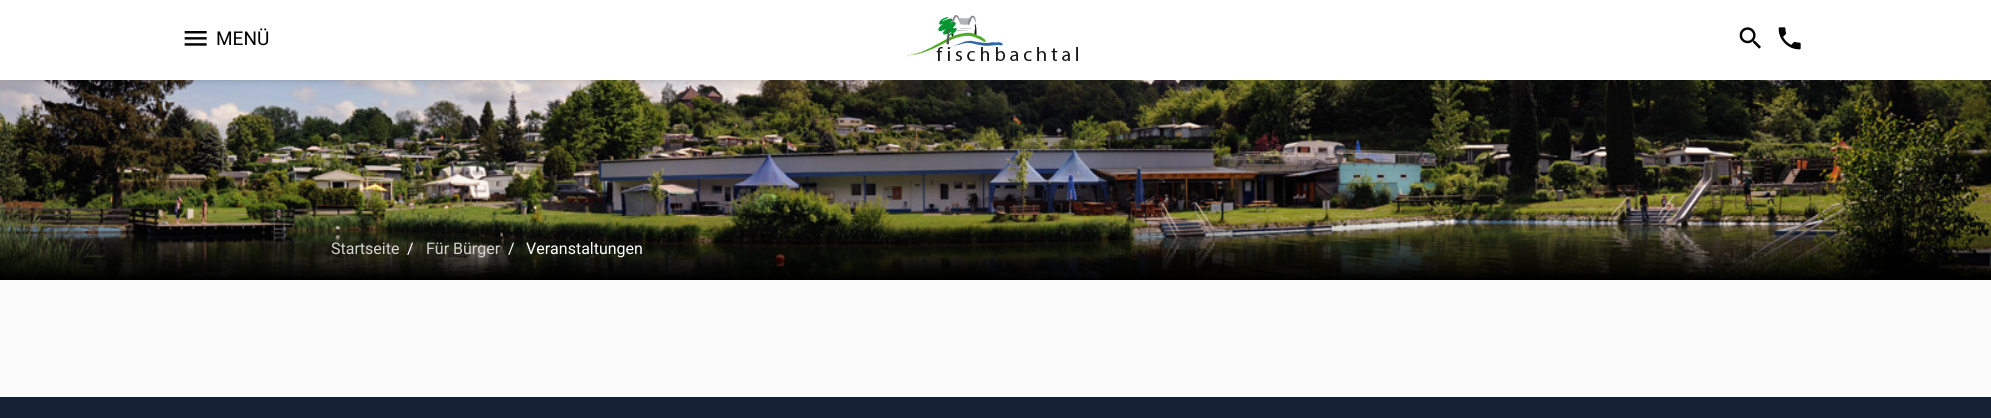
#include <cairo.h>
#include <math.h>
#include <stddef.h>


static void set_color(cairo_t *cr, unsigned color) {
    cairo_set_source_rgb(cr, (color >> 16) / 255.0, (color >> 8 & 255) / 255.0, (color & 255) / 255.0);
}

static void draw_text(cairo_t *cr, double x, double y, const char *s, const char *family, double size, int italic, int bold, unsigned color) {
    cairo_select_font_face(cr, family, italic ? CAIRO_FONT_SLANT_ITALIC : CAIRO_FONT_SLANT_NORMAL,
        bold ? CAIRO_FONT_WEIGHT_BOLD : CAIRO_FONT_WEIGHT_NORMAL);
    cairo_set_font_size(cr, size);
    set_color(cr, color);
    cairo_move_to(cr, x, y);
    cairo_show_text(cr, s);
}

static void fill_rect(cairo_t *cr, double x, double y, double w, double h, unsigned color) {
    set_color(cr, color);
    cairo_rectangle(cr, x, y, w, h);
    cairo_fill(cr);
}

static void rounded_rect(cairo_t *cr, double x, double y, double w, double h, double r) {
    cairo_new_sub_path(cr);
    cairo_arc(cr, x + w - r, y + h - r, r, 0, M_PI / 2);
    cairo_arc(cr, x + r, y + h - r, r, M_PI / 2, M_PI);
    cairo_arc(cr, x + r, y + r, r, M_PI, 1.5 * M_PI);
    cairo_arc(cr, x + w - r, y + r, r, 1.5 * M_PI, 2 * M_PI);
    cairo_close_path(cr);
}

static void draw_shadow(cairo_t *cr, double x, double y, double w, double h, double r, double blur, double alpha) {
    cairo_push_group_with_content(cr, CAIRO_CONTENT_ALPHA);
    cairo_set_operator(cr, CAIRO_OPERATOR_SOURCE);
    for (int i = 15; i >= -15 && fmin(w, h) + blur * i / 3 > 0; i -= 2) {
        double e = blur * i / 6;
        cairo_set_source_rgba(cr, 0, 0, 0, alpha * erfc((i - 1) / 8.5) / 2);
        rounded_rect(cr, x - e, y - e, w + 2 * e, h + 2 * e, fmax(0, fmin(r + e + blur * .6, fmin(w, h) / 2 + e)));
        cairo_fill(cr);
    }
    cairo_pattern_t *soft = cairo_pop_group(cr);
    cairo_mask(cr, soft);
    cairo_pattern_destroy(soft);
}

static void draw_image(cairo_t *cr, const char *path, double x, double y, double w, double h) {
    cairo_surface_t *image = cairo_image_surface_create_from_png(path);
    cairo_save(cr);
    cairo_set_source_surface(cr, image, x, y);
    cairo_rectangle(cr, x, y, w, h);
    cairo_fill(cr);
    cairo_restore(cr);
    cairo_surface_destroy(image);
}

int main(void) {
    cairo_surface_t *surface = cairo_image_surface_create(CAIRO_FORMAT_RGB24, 1991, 418);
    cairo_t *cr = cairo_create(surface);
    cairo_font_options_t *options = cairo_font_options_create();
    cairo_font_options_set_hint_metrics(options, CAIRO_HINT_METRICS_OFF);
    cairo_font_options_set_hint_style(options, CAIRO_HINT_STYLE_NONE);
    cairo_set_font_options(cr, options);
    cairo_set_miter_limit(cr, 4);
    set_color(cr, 0xFBFBFB);
    cairo_paint(cr);
    draw_image(cr, "assets/img5.png", 0, 80, 1991, 200);
    set_color(cr, 0x000000);
    draw_shadow(cr, 0, 0, 1991, 80, 0, 4, 0.2);
    fill_rect(cr, 0, 0, 1991, 80, 0xFFFFFF);
    draw_image(cr, "assets/img1.png", 184, 31, 23, 15);
    draw_text(cr, 216, 45, "MENÜ", "Roboto", 19, 0, 0, 0x000000);
    draw_image(cr, "assets/img2.png", 907, 15, 171, 46);
    draw_image(cr, "assets/img3.png", 1739, 27, 22, 22);
    draw_image(cr, "assets/img4.png", 1778, 27, 23, 23);
    draw_text(cr, 331, 254, "Startseite", "Roboto", 16, 0, 0, 0xD3D3D0);
    draw_text(cr, 407, 254, "/", "Roboto", 16, 0, 0, 0xFFFFFF);
    draw_text(cr, 426, 254, "Für Bürger", "Roboto", 16, 0, 0, 0xD3D3D0);
    draw_text(cr, 508, 254, "/", "Roboto", 16, 0, 0, 0xFFFFFF);
    draw_text(cr, 526, 254, "Veranstaltungen", "Roboto", 16, 0, 0, 0xFFFFFF);
    fill_rect(cr, 0, 397, 1991, 21, 0x162136);
    cairo_surface_write_to_png(surface, "output.png");
    cairo_font_options_destroy(options);
    cairo_destroy(cr);
    cairo_surface_destroy(surface);
    return 0;
}
